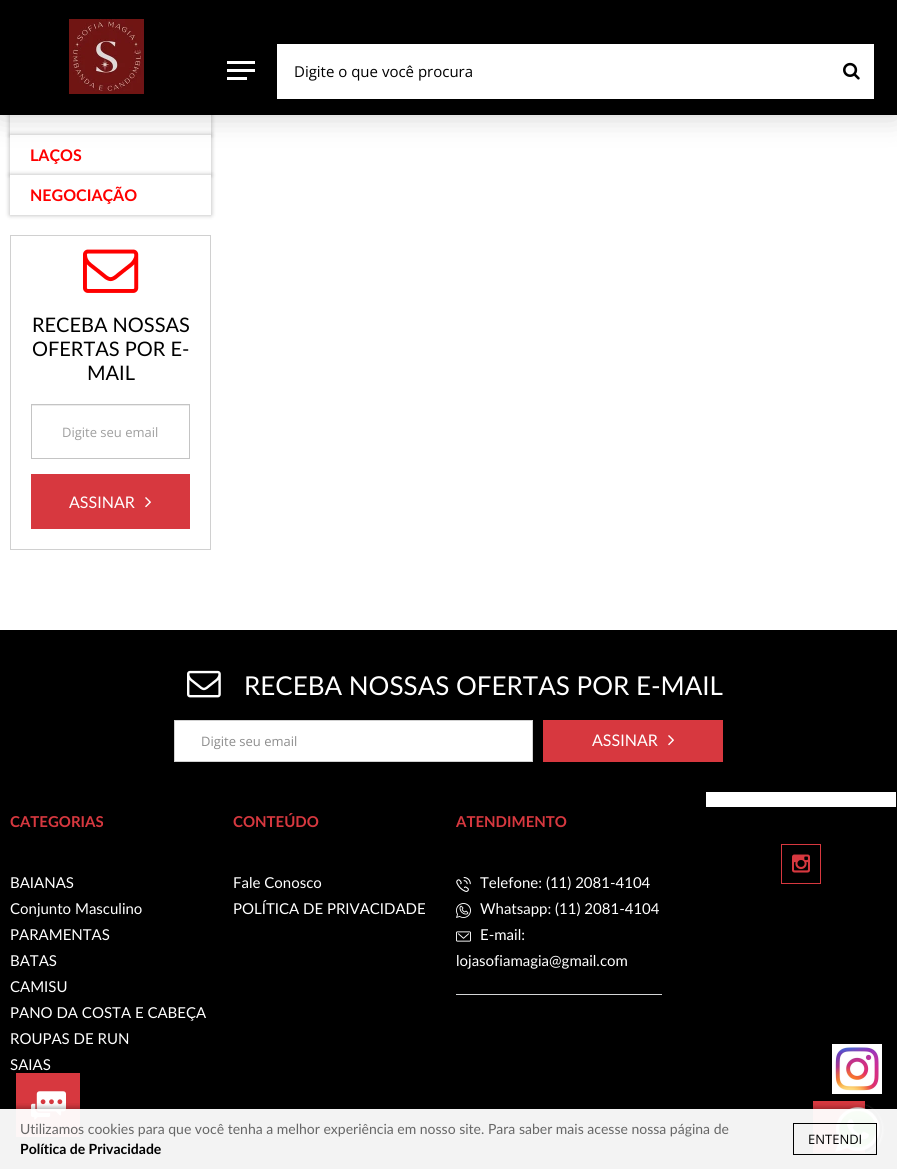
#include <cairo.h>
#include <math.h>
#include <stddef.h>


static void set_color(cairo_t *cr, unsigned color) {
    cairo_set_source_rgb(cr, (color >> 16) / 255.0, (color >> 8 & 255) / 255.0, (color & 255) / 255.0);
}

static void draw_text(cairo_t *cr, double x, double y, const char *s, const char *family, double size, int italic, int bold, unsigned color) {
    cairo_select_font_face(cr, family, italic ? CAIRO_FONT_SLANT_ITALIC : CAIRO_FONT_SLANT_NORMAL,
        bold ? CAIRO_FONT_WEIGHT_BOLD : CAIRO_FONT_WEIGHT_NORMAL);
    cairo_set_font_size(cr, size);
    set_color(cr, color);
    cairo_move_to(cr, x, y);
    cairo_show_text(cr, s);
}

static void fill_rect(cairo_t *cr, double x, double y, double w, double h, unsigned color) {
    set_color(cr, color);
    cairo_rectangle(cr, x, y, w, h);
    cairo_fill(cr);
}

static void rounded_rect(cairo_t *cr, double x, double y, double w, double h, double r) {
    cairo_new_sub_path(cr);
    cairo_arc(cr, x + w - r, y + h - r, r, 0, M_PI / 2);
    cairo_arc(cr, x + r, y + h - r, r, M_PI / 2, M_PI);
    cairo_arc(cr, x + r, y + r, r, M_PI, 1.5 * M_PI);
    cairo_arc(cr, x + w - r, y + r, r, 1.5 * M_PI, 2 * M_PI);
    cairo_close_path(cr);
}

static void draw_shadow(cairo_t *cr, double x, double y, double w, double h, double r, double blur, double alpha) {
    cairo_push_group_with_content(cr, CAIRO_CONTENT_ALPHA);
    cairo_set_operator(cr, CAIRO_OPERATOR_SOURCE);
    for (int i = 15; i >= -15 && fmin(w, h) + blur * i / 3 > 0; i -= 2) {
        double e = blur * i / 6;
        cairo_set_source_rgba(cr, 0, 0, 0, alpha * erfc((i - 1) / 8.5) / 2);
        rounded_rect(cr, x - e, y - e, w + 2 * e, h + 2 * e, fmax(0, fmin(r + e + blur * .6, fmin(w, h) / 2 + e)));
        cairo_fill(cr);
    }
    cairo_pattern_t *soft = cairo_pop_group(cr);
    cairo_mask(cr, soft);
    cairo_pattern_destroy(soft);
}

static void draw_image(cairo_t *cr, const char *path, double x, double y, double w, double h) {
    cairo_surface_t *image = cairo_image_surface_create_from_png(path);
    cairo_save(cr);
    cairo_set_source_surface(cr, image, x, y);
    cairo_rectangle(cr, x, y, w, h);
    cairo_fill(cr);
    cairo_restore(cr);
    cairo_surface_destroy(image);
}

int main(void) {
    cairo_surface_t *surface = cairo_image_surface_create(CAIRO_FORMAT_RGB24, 897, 1169);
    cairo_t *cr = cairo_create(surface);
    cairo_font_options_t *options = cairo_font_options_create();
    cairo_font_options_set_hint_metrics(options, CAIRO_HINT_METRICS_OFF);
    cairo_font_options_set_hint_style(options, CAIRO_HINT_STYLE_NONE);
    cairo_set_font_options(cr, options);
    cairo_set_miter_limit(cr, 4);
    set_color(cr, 0xFFFFFF);
    cairo_paint(cr);
    set_color(cr, 0x000000);
    draw_shadow(cr, 10, 95, 201, 40, 0, 2.5, 0.3);
    fill_rect(cr, 10, 115, 201, 20, 0xFFFFFF);
    set_color(cr, 0x000000);
    draw_shadow(cr, 10, 135, 201, 40, 0, 2.5, 0.3);
    fill_rect(cr, 10, 135, 201, 40, 0xFFFFFF);
    set_color(cr, 0x000000);
    draw_shadow(cr, 0, 0, 897, 115, 0, 15, 0.2);
    fill_rect(cr, 0, 0, 897, 115, 0x000000);
    draw_image(cr, "assets/img1.png", 69, 19, 75, 75);
    fill_rect(cr, 227, 61, 28, 3, 0xFFFFFF);
    fill_rect(cr, 227, 69, 28, 3, 0xFFFFFF);
    fill_rect(cr, 227, 77, 20, 3, 0xFFFFFF);
    fill_rect(cr, 277, 44, 597, 55, 0xFFFFFF);
    draw_text(cr, 294, 77, "Digite o que você procura", "Open Sans", 15, 0, 0, 0x000000);
    draw_image(cr, "assets/img2.png", 843, 62, 17, 18);
    draw_text(cr, 30, 161, "LAÇOS", "Lato", 16, 0, 1, 0xFF0000);
    set_color(cr, 0x000000);
    draw_shadow(cr, 10, 175, 201, 40, 0, 2.5, 0.3);
    fill_rect(cr, 10, 175, 201, 40, 0xFFFFFF);
    draw_text(cr, 30, 201, "NEGOCIAÇÃO", "Lato", 16, 0, 1, 0xFF0000);
    cairo_rectangle(cr, 10.5, 235.5, 200, 314);
    set_color(cr, 0xD0D0D0);
    cairo_set_line_width(cr, 1);
    cairo_stroke(cr);
    draw_image(cr, "assets/img3.png", 83, 249, 56, 44);
    draw_text(cr, 32, 332, "RECEBA NOSSAS", "Lato", 20, 0, 0, 0x000000);
    draw_text(cr, 32, 356, "OFERTAS POR E-", "Lato", 20, 0, 0, 0x000000);
    draw_text(cr, 87, 380, "MAIL", "Lato", 20, 0, 0, 0x000000);
    fill_rect(cr, 32, 405, 157, 1, 0xECECEC);
    cairo_rectangle(cr, 31.5, 404.5, 158, 54);
    set_color(cr, 0xC4C4C4);
    cairo_stroke(cr);
    draw_text(cr, 62, 437, "Digite seu email", "Open Sans", 13, 0, 0, 0x9F9F9F);
    fill_rect(cr, 31, 474, 159, 55, 0xD7383F);
    draw_text(cr, 69, 508, "ASSINAR", "Lato", 16, 0, 0, 0xFFFFFF);
    draw_image(cr, "assets/img4.png", 145, 497, 6, 11);
    fill_rect(cr, 0, 630, 897, 539, 0x000000);
    draw_image(cr, "assets/img5.png", 187, 670, 34, 28);
    draw_text(cr, 244, 695, "RECEBA NOSSAS OFERTAS POR E-MAIL", "Lato", 26, 0, 0, 0xFFFFFF);
    cairo_rectangle(cr, 174.5, 720.5, 358, 41);
    cairo_fill_preserve(cr);
    set_color(cr, 0xD1D1D1);
    cairo_stroke(cr);
    draw_text(cr, 201, 746, "Digite seu email", "Open Sans", 13, 0, 0, 0x8D8D8D);
    fill_rect(cr, 543, 720, 180, 42, 0xD7383F);
    draw_text(cr, 592, 746, "ASSINAR", "Lato", 16, 0, 0, 0xFFFFFF);
    draw_image(cr, "assets/img4.png", 668, 735, 6, 11);
    draw_text(cr, 10, 827, "CATEGORIAS", "Lato", 15, 0, 1, 0xD7383F);
    draw_text(cr, 10, 888, "BAIANAS", "Lato", 15, 0, 0, 0xFFFFFF);
    draw_text(cr, 10, 914, "Conjunto Masculino", "Lato", 15, 0, 0, 0xFFFFFF);
    draw_text(cr, 10, 940, "PARAMENTAS", "Lato", 15, 0, 0, 0xFFFFFF);
    draw_text(cr, 10, 966, "BATAS", "Lato", 15, 0, 0, 0xFFFFFF);
    draw_text(cr, 10, 992, "CAMISU", "Lato", 15, 0, 0, 0xFFFFFF);
    draw_text(cr, 10, 1018, "PANO DA COSTA E CABEÇA", "Lato", 15, 0, 0, 0xFFFFFF);
    draw_text(cr, 10, 1044, "ROUPAS DE RUN", "Lato", 15, 0, 0, 0xFFFFFF);
    draw_text(cr, 10, 1070, "SAIAS", "Lato", 15, 0, 0, 0xFFFFFF);
    draw_text(cr, 233, 827, "CONTEÚDO", "Lato", 15, 0, 1, 0xD7383F);
    draw_text(cr, 233, 888, "Fale Conosco", "Lato", 15, 0, 0, 0xFFFFFF);
    draw_text(cr, 233, 914, "POLÍTICA DE PRIVACIDADE", "Lato", 15, 0, 0, 0xFFFFFF);
    draw_text(cr, 456, 827, "ATENDIMENTO", "Lato", 15, 0, 1, 0xD7383F);
    fill_rect(cr, 456, 994, 206, 1, 0xD4D5D6);
    draw_image(cr, "assets/img6.png", 456, 877, 15, 15);
    draw_text(cr, 480, 888, "Telefone: (11) 2081-4104", "Lato", 15, 0, 0, 0xFFFFFF);
    draw_image(cr, "assets/img7.png", 456, 903, 15, 15);
    draw_text(cr, 480, 914, "Whatsapp: (11) 2081-4104", "Lato", 15, 0, 0, 0xFFFFFF);
    draw_image(cr, "assets/img8.png", 456, 931, 15, 11);
    draw_text(cr, 480, 940, "E-mail:", "Lato", 15, 0, 0, 0xFFFFFF);
    draw_text(cr, 456, 966, "lojasofiamagia@gmail.com", "Lato", 15, 0, 0, 0xFFFFFF);
    fill_rect(cr, 706, 792, 190, 15, 0xFFFFFF);
    cairo_rectangle(cr, 781.5, 844.5, 39, 39);
    set_color(cr, 0xD7383F);
    cairo_stroke(cr);
    draw_image(cr, "assets/img9.png", 792, 854, 18, 19);
    draw_image(cr, "assets/img10.png", 832, 1044, 50, 50);
    fill_rect(cr, 16, 1073, 64, 64, 0xD7383F);
    draw_image(cr, "assets/img11.png", 31, 1091, 35, 29);
    fill_rect(cr, 813, 1101, 52, 52, 0xD7383F);
    cairo_save(cr);
    cairo_set_fill_rule(cr, CAIRO_FILL_RULE_EVEN_ODD);
    cairo_new_path(cr);
    cairo_move_to(cr, 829, 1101);
    cairo_line_to(cr, 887, 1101);
    cairo_line_to(cr, 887, 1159);
    cairo_line_to(cr, 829, 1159);
    cairo_close_path(cr);
    cairo_move_to(cr, 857, 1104);
    cairo_curve_to(cr, 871, 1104, 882, 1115, 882, 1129);
    cairo_curve_to(cr, 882, 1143, 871, 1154, 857, 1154);
    cairo_curve_to(cr, 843, 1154, 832, 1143, 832, 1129);
    cairo_curve_to(cr, 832, 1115, 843, 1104, 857, 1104);
    cairo_close_path(cr);
    cairo_clip(cr);
    set_color(cr, 0x888888);
    draw_shadow(cr, 833, 1105, 50, 50, 25, 1, 1);
    cairo_restore(cr);
    draw_image(cr, "assets/img12.png", 835, 1107, 45, 46);
    cairo_save(cr);
    cairo_rectangle(cr, 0, 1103, 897, 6);
    cairo_clip(cr);
    set_color(cr, 0x000000);
    draw_shadow(cr, 0, 1109, 897, 60, 0, 3.5, 0.5);
    cairo_restore(cr);
    cairo_set_source_rgba(cr, 1, 1, 1, 0.95);
    cairo_rectangle(cr, 0, 1109, 897, 60);
    cairo_fill(cr);
    draw_text(cr, 20, 1134, "Utilizamos cookies para que você tenha a melhor experiência em nosso site. Para saber mais acesse nossa página de", "Lato", 14, 0, 0, 0x666666);
    draw_text(cr, 20, 1154, "Política de Privacidade", "Lato", 14, 0, 1, 0x000000);
    cairo_rectangle(cr, 793.5, 1123.5, 83, 31);
    cairo_stroke(cr);
    draw_text(cr, 808, 1144, "ENTENDI", "Open Sans", 13, 0, 0, 0x000000);
    cairo_surface_write_to_png(surface, "output.png");
    cairo_font_options_destroy(options);
    cairo_destroy(cr);
    cairo_surface_destroy(surface);
    return 0;
}
